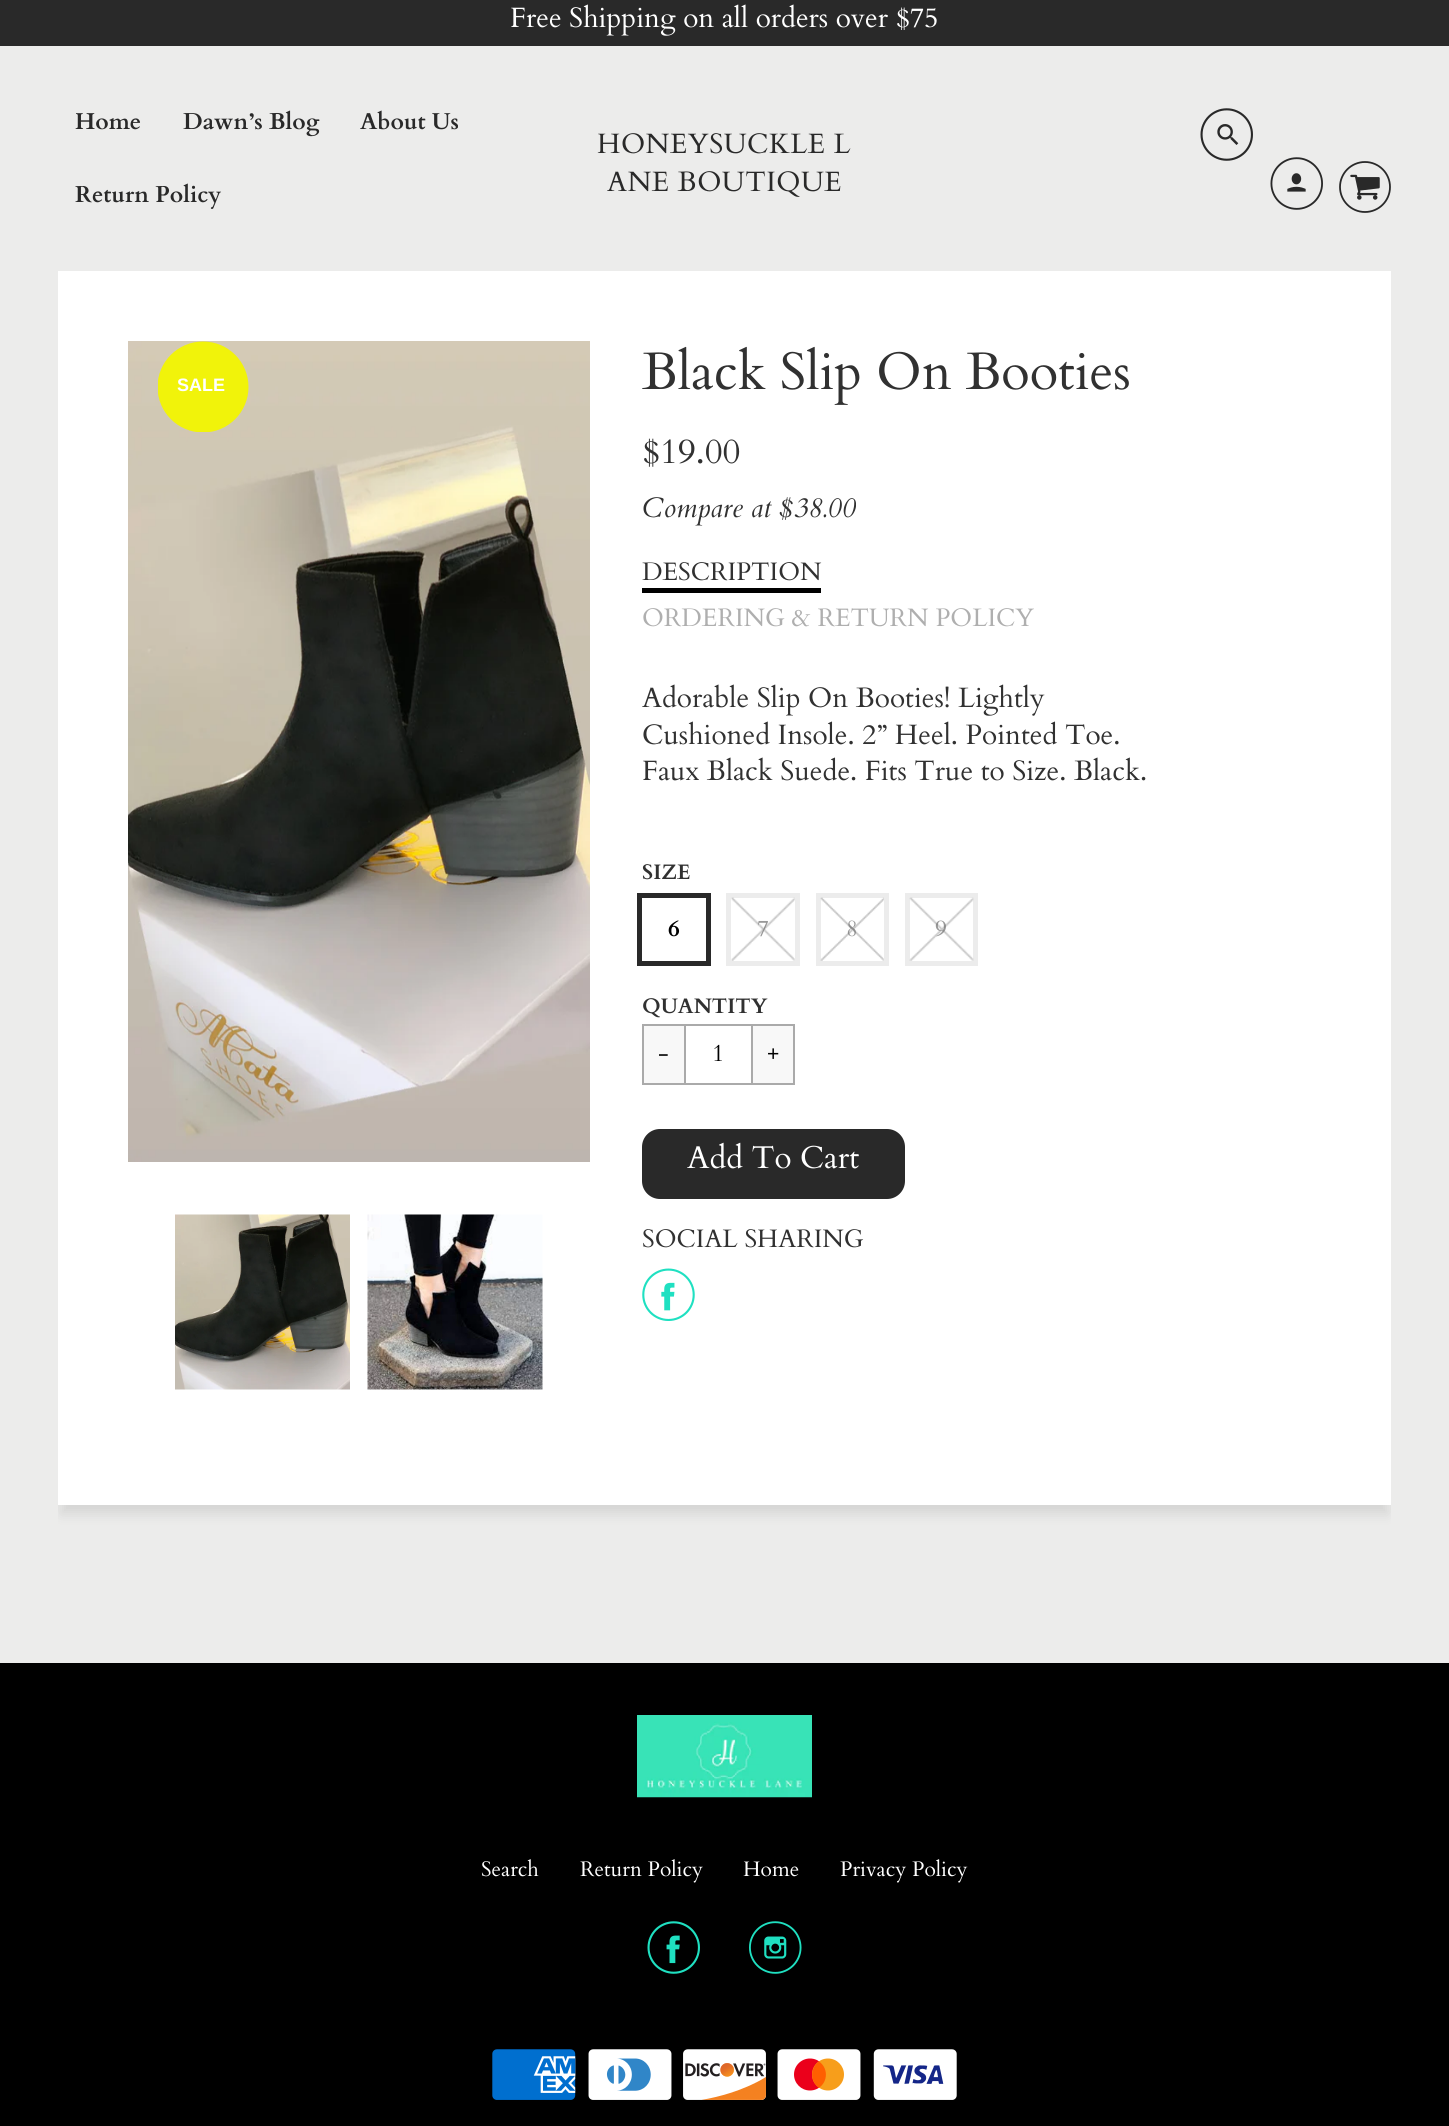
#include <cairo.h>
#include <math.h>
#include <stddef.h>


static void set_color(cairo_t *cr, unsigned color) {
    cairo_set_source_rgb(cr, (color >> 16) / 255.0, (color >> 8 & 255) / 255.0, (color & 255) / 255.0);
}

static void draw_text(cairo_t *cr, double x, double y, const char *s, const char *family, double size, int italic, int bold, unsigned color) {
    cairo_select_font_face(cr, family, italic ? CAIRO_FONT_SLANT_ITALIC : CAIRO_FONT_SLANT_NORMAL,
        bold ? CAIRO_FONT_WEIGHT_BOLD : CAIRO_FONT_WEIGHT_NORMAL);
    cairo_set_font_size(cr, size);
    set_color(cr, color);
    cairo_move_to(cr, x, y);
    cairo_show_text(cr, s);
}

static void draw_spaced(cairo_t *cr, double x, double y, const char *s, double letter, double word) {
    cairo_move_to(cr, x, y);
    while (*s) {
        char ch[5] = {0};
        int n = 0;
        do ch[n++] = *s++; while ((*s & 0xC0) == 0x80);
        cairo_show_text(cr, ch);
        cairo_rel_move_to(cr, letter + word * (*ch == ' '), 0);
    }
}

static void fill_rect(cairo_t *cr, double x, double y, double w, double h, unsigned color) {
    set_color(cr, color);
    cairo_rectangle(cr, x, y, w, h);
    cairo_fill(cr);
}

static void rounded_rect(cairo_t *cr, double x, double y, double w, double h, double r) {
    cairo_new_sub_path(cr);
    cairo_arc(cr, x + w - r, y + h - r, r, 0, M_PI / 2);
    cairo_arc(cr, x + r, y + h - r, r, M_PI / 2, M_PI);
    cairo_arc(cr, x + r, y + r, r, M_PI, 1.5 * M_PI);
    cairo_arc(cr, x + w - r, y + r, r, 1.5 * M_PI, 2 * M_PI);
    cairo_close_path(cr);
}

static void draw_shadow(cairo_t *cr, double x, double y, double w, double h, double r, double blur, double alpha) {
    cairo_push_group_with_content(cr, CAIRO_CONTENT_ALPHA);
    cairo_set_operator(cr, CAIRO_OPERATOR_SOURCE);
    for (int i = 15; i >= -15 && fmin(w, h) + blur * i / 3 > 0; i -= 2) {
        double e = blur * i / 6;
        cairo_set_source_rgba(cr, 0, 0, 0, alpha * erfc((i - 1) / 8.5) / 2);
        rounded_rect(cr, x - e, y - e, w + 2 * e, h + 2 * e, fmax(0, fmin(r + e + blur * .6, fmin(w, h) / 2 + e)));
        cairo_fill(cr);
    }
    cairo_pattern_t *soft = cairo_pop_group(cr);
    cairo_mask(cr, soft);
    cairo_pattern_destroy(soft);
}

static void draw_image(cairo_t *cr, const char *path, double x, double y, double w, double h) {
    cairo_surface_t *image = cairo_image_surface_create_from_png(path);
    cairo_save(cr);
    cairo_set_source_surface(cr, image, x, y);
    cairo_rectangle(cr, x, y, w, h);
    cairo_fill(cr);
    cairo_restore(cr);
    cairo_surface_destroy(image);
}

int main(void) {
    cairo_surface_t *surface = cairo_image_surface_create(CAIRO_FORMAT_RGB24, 1449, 2126);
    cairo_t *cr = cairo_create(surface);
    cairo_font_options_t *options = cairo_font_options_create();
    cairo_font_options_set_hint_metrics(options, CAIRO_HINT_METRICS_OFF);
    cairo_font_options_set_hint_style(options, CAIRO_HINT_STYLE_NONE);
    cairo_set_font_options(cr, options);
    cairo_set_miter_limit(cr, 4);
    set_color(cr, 0xECECEB);
    cairo_paint(cr);
    fill_rect(cr, 0, 0, 1449, 46, 0x292929);
    draw_text(cr, 510, 27, "Free Shipping on all orders over $75", "Cardo", 28, 0, 0, 0xFFFFFF);
    draw_text(cr, 75, 129, "Home", "Cardo", 23, 0, 1, 0x292929);
    draw_text(cr, 183, 129, "Dawn’s Blog", "Cardo", 23, 0, 1, 0x292929);
    draw_text(cr, 360, 129, "About Us", "Cardo", 23, 0, 1, 0x292929);
    draw_text(cr, 75, 202, "Return Policy", "Cardo", 23, 0, 1, 0x292929);
    cairo_select_font_face(cr, "Cardo", CAIRO_FONT_SLANT_NORMAL, CAIRO_FONT_WEIGHT_NORMAL);
    cairo_set_font_size(cr, 28);
    draw_spaced(cr, 597, 153, "HONEYSUCKLE L", 0.5, 0);
    draw_spaced(cr, 607, 191, "ANE BOUTIQUE", 0.5, 0);
    draw_image(cr, "assets/img1.png", 1200, 108, 53, 53);
    draw_image(cr, "assets/img2.png", 1270, 157, 53, 53);
    draw_image(cr, "assets/img3.png", 1339, 161, 52, 52);
    cairo_save(cr);
    cairo_rectangle(cr, 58, 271, 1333, 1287);
    cairo_clip(cr);
    set_color(cr, 0xA3A3A3);
    draw_shadow(cr, 61, 287, 1327, 1227, 0, 6, 0.32);
    cairo_restore(cr);
    fill_rect(cr, 58, 271, 1333, 1234, 0xFFFFFF);
    draw_image(cr, "assets/img4.png", 128, 341, 462, 821);
    cairo_save(cr);
    cairo_rectangle(cr, 158, 341, 91, 91);
    cairo_clip(cr);
    set_color(cr, 0xF1F30A);
    cairo_arc(cr, 203, 387, 45.5, 0, 2 * M_PI);
    cairo_fill(cr);
    cairo_restore(cr);
    draw_text(cr, 177, 391, "SALE", "Liberation Sans", 18, 0, 1, 0xFFFFFF);
    draw_image(cr, "assets/img5.png", 175, 1214, 175, 176);
    draw_image(cr, "assets/img6.png", 367, 1214, 176, 176);
    draw_text(cr, 642, 389, "Black Slip On Booties", "Cardo", 52.5, 0, 0, 0x313131);
    draw_text(cr, 642, 463, "$19.00", "Cardo", 35, 0, 0, 0x313131);
    draw_text(cr, 642, 517, "Compare at $38.00", "Cardo", 28, 1, 0, 0x313131);
    draw_text(cr, 642, 580, "DESCRIPTION", "Cardo", 25.25, 0, 0, 0x313131);
    fill_rect(cr, 642, 588, 179, 5, 0x000000);
    draw_text(cr, 642, 626, "ORDERING & RETURN POLICY", "Cardo", 25.25, 0, 0, 0xAFAFAF);
    draw_text(cr, 642, 707, "Adorable Slip On Booties! Lightly", "Cardo", 28, 0, 0, 0x313131);
    draw_text(cr, 642, 744, "Cushioned Insole. 2” Heel. Pointed Toe.", "Cardo", 28, 0, 0, 0x313131);
    draw_text(cr, 642, 780, "Faux Black Suede. Fits True to Size. Black.", "Cardo", 28, 0, 0, 0x313131);
    draw_text(cr, 642, 879, "SIZE", "Cardo", 21, 0, 1, 0x313131);
    cairo_rectangle(cr, 639.5, 895.5, 69, 68);
    set_color(cr, 0x292929);
    cairo_set_line_width(cr, 5);
    cairo_stroke(cr);
    draw_text(cr, 668, 936, "6", "Cardo", 23, 0, 1, 0x000000);
    cairo_rectangle(cr, 728.5, 895.5, 69, 68);
    set_color(cr, 0xECECEC);
    cairo_stroke(cr);
    draw_text(cr, 757, 936, "7", "Cardo", 23, 0, 0, 0x999999);
    draw_image(cr, "assets/img7.png", 731, 897, 64, 64);
    cairo_rectangle(cr, 818.5, 895.5, 68, 68);
    set_color(cr, 0xECECEC);
    cairo_stroke(cr);
    draw_text(cr, 846, 936, "8", "Cardo", 23, 0, 0, 0x999999);
    draw_image(cr, "assets/img8.png", 820, 897, 64, 64);
    cairo_rectangle(cr, 907.5, 895.5, 68, 68);
    set_color(cr, 0xECECEC);
    cairo_stroke(cr);
    draw_text(cr, 935, 936, "9", "Cardo", 23, 0, 0, 0x999999);
    draw_image(cr, "assets/img9.png", 909, 897, 65, 64);
    draw_text(cr, 642, 1013, "QUANTITY", "Cardo", 21, 0, 1, 0x313131);
    fill_rect(cr, 684, 1024, 70, 2, 0xAAAAAA);
    fill_rect(cr, 684, 1083, 70, 2, 0xAAAAAA);
    set_color(cr, 0xF8F8F8);
    cairo_rectangle(cr, 643, 1025, 42, 59);
    cairo_fill_preserve(cr);
    set_color(cr, 0xAAAAAA);
    cairo_set_line_width(cr, 2);
    cairo_stroke(cr);
    draw_text(cr, 658, 1061, "-", "Cardo", 24, 0, 0, 0x000000);
    draw_text(cr, 712, 1061, "1", "Cardo", 24, 0, 0, 0x000000);
    set_color(cr, 0xF8F8F8);
    cairo_rectangle(cr, 752, 1025, 42, 59);
    cairo_fill_preserve(cr);
    set_color(cr, 0xAAAAAA);
    cairo_stroke(cr);
    draw_text(cr, 767, 1061, "+", "Cardo", 24, 0, 0, 0x000000);
    set_color(cr, 0x292929);
    rounded_rect(cr, 642, 1129, 263, 70, 18);
    cairo_fill(cr);
    draw_text(cr, 687, 1168, "Add To Cart", "Cardo", 31.5, 0, 0, 0xFFFFFF);
    draw_text(cr, 642, 1247, "SOCIAL SHARING", "Cardo", 25.25, 0, 0, 0x313131);
    draw_image(cr, "assets/img10.png", 642, 1268, 53, 53);
    fill_rect(cr, 0, 1663, 1449, 463, 0x000000);
    draw_image(cr, "assets/img11.png", 637, 1715, 175, 83);
    draw_text(cr, 481, 1876, "Search", "Cardo", 21, 0, 0, 0xFFFFFF);
    draw_text(cr, 580, 1876, "Return Policy", "Cardo", 21, 0, 0, 0xFFFFFF);
    draw_text(cr, 743, 1876, "Home", "Cardo", 21, 0, 0, 0xFFFFFF);
    draw_text(cr, 840, 1876, "Privacy Policy", "Cardo", 21, 0, 0, 0xFFFFFF);
    draw_image(cr, "assets/img12.png", 647, 1921, 53, 53);
    draw_image(cr, "assets/img13.png", 749, 1921, 53, 53);
    draw_image(cr, "assets/img14.png", 492, 2049, 84, 51);
    draw_image(cr, "assets/img15.png", 588, 2049, 84, 51);
    draw_image(cr, "assets/img16.png", 683, 2049, 83, 51);
    draw_image(cr, "assets/img17.png", 777, 2049, 84, 51);
    draw_image(cr, "assets/img18.png", 873, 2049, 84, 51);
    cairo_surface_write_to_png(surface, "output.png");
    cairo_font_options_destroy(options);
    cairo_destroy(cr);
    cairo_surface_destroy(surface);
    return 0;
}
